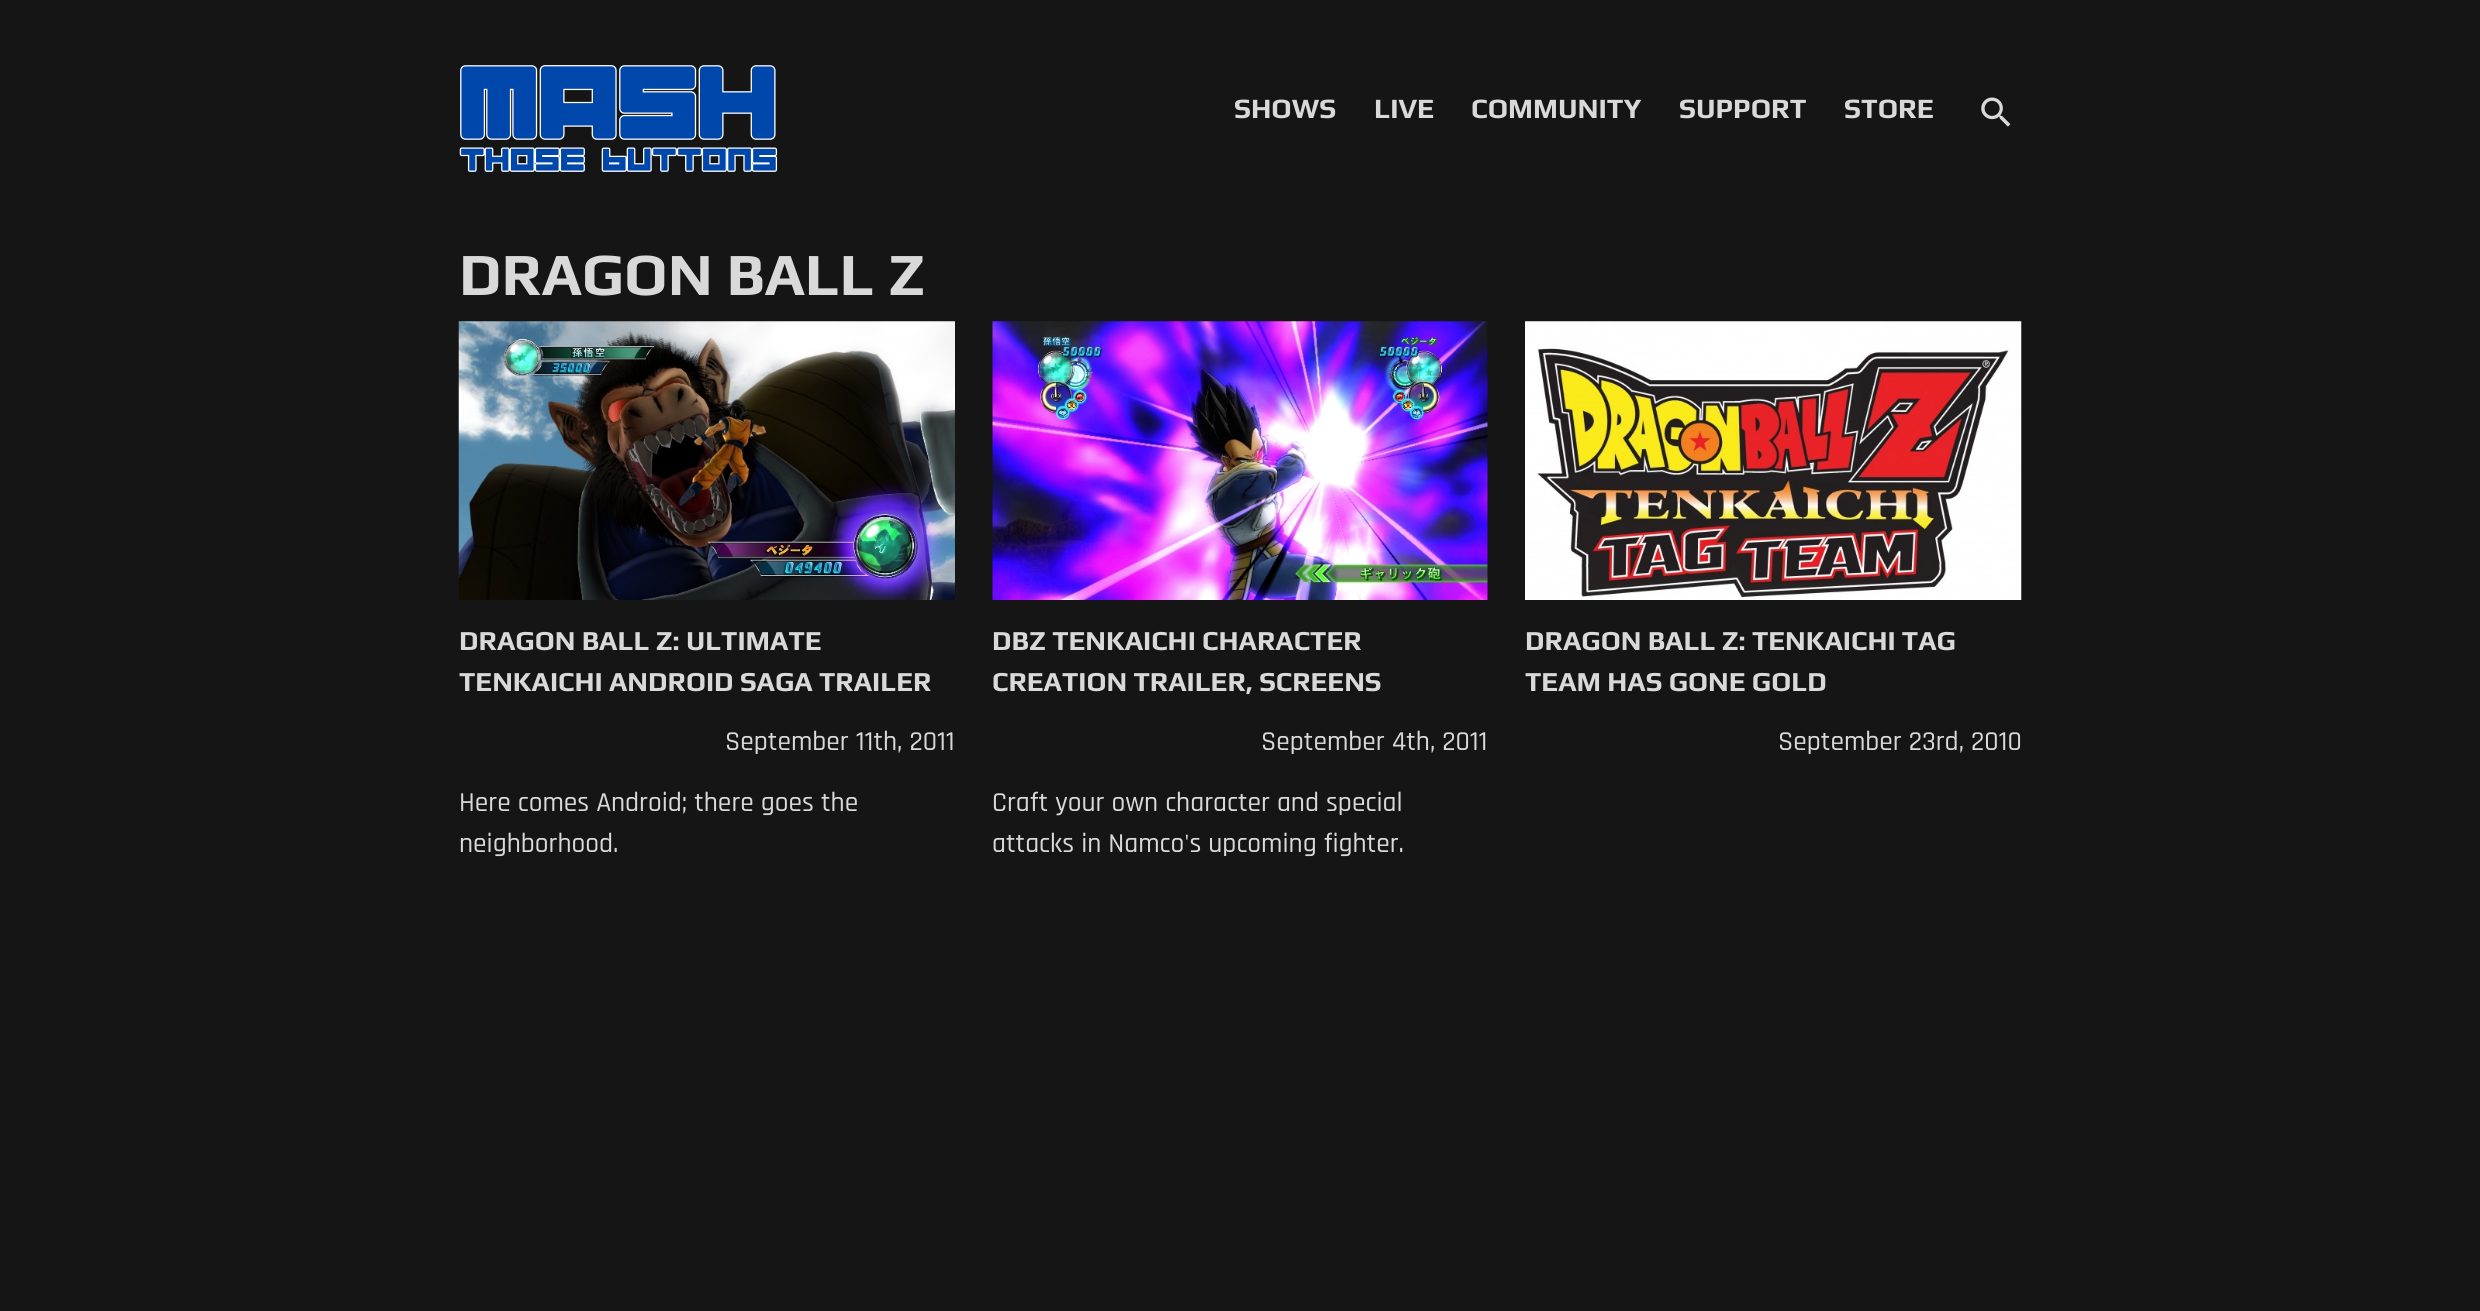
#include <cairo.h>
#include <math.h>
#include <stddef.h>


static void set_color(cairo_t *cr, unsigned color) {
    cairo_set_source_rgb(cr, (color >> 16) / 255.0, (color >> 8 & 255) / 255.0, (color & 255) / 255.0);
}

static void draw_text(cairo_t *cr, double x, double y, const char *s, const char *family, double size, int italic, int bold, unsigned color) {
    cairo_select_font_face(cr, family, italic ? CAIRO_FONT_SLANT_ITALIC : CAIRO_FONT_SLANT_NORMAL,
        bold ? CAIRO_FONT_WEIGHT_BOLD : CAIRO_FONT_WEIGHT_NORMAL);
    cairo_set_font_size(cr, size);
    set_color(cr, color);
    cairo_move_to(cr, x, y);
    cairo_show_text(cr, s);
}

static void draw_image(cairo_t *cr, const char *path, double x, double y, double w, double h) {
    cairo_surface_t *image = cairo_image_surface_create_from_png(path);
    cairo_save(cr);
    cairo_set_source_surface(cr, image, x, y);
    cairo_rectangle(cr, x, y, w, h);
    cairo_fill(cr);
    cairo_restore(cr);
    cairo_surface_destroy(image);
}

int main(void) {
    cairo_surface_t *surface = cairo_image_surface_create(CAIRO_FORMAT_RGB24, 2480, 1311);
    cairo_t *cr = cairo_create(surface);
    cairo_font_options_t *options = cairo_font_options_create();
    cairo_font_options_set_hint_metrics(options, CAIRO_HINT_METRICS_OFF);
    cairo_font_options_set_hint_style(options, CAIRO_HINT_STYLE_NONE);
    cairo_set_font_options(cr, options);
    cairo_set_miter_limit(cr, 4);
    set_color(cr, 0x151515);
    cairo_paint(cr);
    draw_image(cr, "assets/img1.png", 459, 65, 319, 107);
    draw_text(cr, 1234, 118, "SHOWS", "Play", 28, 0, 1, 0xD9D9D9);
    draw_text(cr, 1374, 118, "LIVE", "Play", 28, 0, 1, 0xD9D9D9);
    draw_text(cr, 1471, 118, "COMMUNITY", "Play", 28, 0, 1, 0xD9D9D9);
    draw_text(cr, 1679, 118, "SUPPORT", "Play", 28, 0, 1, 0xD9D9D9);
    draw_text(cr, 1844, 118, "STORE", "Play", 28, 0, 1, 0xD9D9D9);
    draw_image(cr, "assets/img2.png", 1981, 97, 30, 30);
    draw_text(cr, 459, 295, "DRAGON BALL Z", "Play", 60, 0, 1, 0xD9D9D9);
    draw_image(cr, "assets/img3.png", 458, 321, 497, 279);
    draw_text(cr, 459, 650, "DRAGON BALL Z: ULTIMATE", "Play", 27.5, 0, 1, 0xD9D9D9);
    draw_text(cr, 459, 691, "TENKAICHI ANDROID SAGA TRAILER", "Play", 27.5, 0, 1, 0xD9D9D9);
    draw_text(cr, 725, 750, "September 11th, 2011", "Rajdhani Medium", 27.5, 0, 0, 0xD9D9D9);
    draw_text(cr, 459, 811, "Here comes Android; there goes the", "Rajdhani Medium", 27.5, 0, 0, 0xD9D9D9);
    draw_text(cr, 459, 852, "neighborhood.", "Rajdhani Medium", 27.5, 0, 0, 0xD9D9D9);
    draw_image(cr, "assets/img4.png", 992, 321, 496, 279);
    draw_text(cr, 992, 650, "DBZ TENKAICHI CHARACTER", "Play", 27.5, 0, 1, 0xD9D9D9);
    draw_text(cr, 992, 691, "CREATION TRAILER, SCREENS", "Play", 27.5, 0, 1, 0xD9D9D9);
    draw_text(cr, 1261, 750, "September 4th, 2011", "Rajdhani Medium", 27.5, 0, 0, 0xD9D9D9);
    draw_text(cr, 992, 811, "Craft your own character and special", "Rajdhani Medium", 27.5, 0, 0, 0xD9D9D9);
    draw_text(cr, 992, 852, "attacks in Namco's upcoming fighter.", "Rajdhani Medium", 27.5, 0, 0, 0xD9D9D9);
    draw_image(cr, "assets/img5.png", 1525, 321, 497, 279);
    draw_text(cr, 1525, 650, "DRAGON BALL Z: TENKAICHI TAG", "Play", 27.5, 0, 1, 0xD9D9D9);
    draw_text(cr, 1525, 691, "TEAM HAS GONE GOLD", "Play", 27.5, 0, 1, 0xD9D9D9);
    draw_text(cr, 1778, 750, "September 23rd, 2010", "Rajdhani Medium", 27.5, 0, 0, 0xD9D9D9);
    cairo_surface_write_to_png(surface, "output.png");
    cairo_font_options_destroy(options);
    cairo_destroy(cr);
    cairo_surface_destroy(surface);
    return 0;
}
